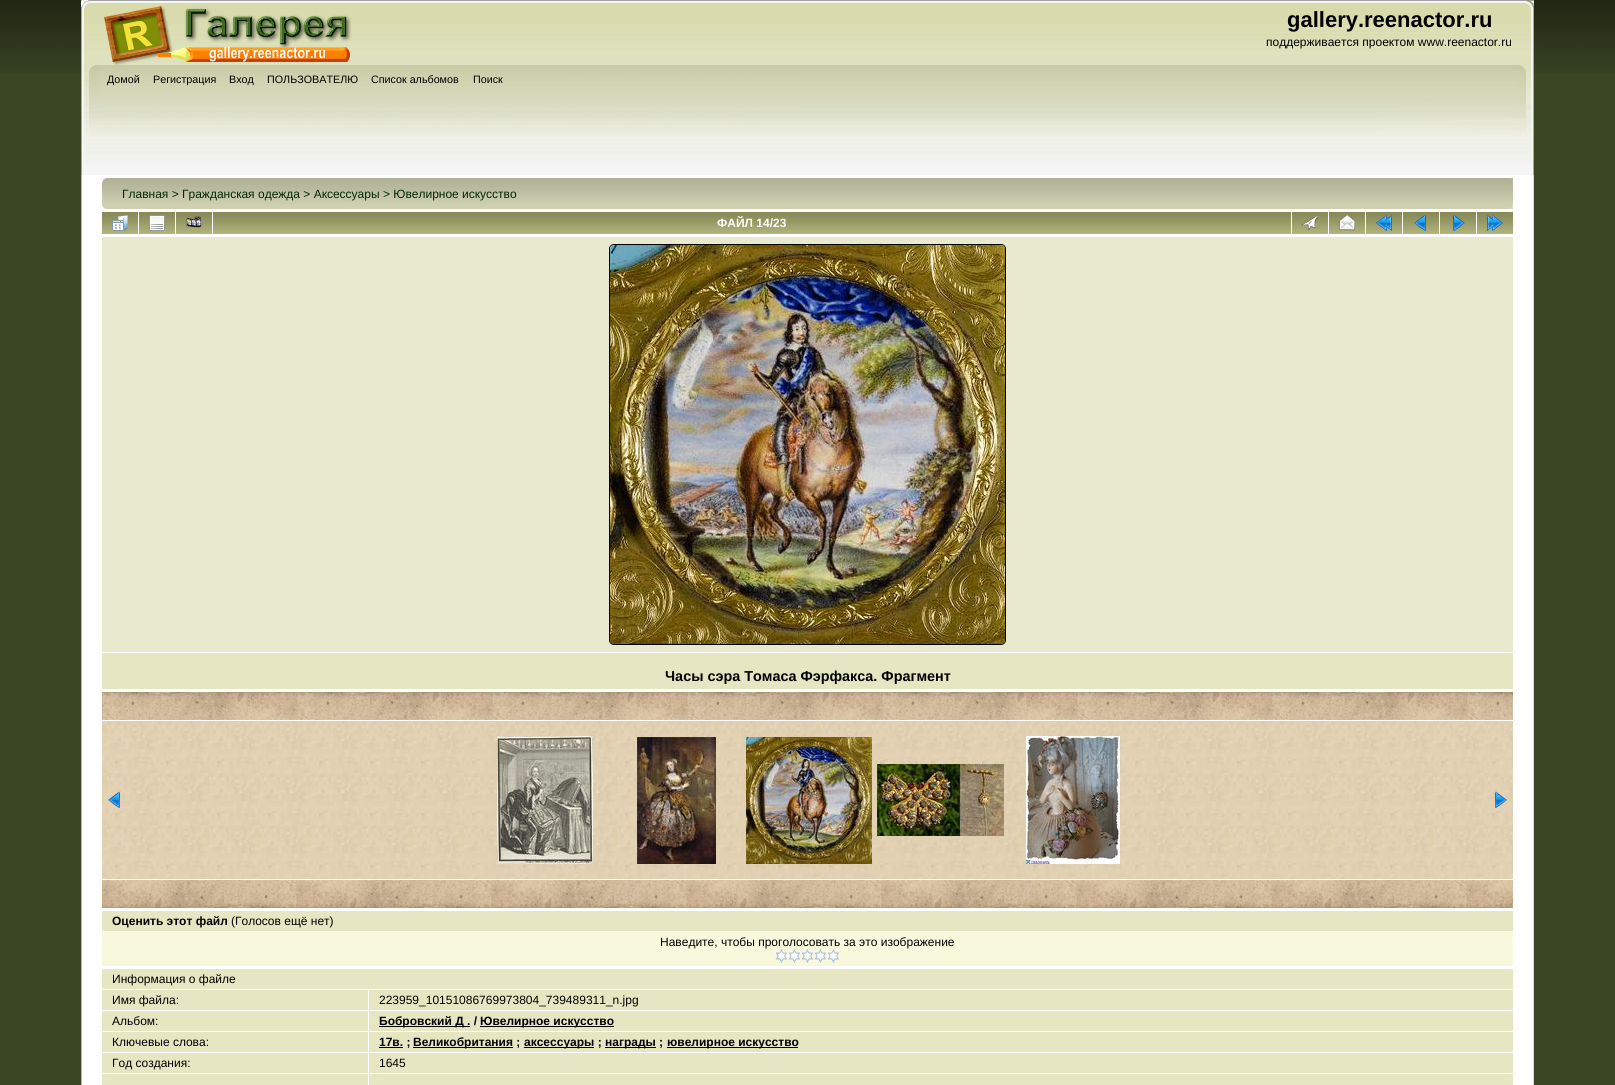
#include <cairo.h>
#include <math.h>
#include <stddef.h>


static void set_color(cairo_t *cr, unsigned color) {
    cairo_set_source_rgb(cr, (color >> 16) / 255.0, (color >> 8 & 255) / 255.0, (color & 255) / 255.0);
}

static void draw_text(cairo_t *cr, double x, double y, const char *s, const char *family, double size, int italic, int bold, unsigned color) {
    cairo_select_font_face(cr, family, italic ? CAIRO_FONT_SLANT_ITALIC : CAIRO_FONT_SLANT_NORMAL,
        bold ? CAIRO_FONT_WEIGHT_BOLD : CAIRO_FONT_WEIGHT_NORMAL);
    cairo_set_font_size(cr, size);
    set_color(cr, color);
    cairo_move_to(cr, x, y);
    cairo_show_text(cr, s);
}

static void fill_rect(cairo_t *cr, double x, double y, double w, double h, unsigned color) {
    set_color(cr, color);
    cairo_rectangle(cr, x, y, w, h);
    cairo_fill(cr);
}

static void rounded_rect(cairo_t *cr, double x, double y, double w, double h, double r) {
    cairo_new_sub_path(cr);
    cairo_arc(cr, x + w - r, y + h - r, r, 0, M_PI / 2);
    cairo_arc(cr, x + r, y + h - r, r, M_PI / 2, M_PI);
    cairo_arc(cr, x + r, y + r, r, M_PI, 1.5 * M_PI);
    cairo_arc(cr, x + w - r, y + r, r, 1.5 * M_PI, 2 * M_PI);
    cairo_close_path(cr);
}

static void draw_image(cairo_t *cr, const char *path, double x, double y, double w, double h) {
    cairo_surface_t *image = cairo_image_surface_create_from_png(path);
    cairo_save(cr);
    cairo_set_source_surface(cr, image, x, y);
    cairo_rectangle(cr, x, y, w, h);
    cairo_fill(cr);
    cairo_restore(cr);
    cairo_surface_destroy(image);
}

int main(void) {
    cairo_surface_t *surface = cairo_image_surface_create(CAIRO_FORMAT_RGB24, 1615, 1085);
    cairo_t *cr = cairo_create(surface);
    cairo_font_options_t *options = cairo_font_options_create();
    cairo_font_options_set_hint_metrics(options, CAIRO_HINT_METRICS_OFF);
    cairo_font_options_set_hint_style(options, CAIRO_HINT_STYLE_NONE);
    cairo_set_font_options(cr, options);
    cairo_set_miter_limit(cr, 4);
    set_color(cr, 0x3B4625);
    cairo_paint(cr);
    draw_image(cr, "assets/img1.png", 0, 0, 1615, 74);
    fill_rect(cr, 81, 0, 8, 7, 0xFEFEFE);
    draw_image(cr, "assets/img2.png", 81, 0, 1453, 65);
    draw_image(cr, "assets/img3.png", 1526, 0, 8, 65);
    draw_image(cr, "assets/img4.png", 104, 6, 248, 59);
    draw_text(cr, 1287, 27, "gallery.reenactor.ru", "Liberation Sans", 22, 0, 1, 0x000000);
    draw_text(cr, 1266, 46, "поддерживается проектом www.reenactor.ru", "Liberation Sans", 12, 0, 0, 0x000000);
    draw_image(cr, "assets/img5.png", 81, 65, 718, 110);
    draw_image(cr, "assets/img6.png", 799, 65, 735, 110);
    draw_text(cr, 107, 83, "Домой", "Liberation Sans", 10.75, 0, 0, 0x000000);
    draw_text(cr, 153, 83, "Регистрация", "Liberation Sans", 10.75, 0, 0, 0x000000);
    draw_text(cr, 229, 83, "Вход", "Liberation Sans", 10.75, 0, 0, 0x000000);
    draw_text(cr, 267, 83, "ПОЛЬЗОВАТЕЛЮ", "Liberation Sans", 10.75, 0, 0, 0x000000);
    draw_text(cr, 371, 83, "Список альбомов", "Liberation Sans", 10.75, 0, 0, 0x000000);
    draw_text(cr, 473, 83, "Поиск", "Liberation Sans", 10.75, 0, 0, 0x000000);
    fill_rect(cr, 82, 175, 1451, 910, 0xFFFFFF);
    fill_rect(cr, 81, 175, 1, 910, 0xB7B7B7);
    fill_rect(cr, 1533, 175, 1, 910, 0xDBDBDB);
    draw_image(cr, "assets/img7.png", 102, 178, 1411, 31);
    draw_image(cr, "assets/img8.png", 1508, 178, 5, 31);
    draw_text(cr, 122, 198, "Главная > Гражданская одежда > Аксессуары > Ювелирное искусство", "Liberation Sans", 12, 0, 0, 0x022900);
    draw_image(cr, "assets/img9.png", 102, 212, 36, 22);
    draw_image(cr, "assets/img10.png", 112, 215, 16, 16);
    draw_image(cr, "assets/img9.png", 139, 212, 36, 22);
    draw_image(cr, "assets/img11.png", 149, 215, 16, 16);
    draw_image(cr, "assets/img9.png", 176, 212, 36, 22);
    draw_image(cr, "assets/img12.png", 186, 216, 16, 12);
    draw_image(cr, "assets/img13.png", 213, 212, 1078, 22);
    draw_text(cr, 717, 227, "ФАЙЛ 14/23", "Liberation Sans", 12, 0, 1, 0xFFFFFF);
    draw_image(cr, "assets/img9.png", 1292, 212, 36, 22);
    draw_image(cr, "assets/img14.png", 1302, 215, 16, 15);
    draw_image(cr, "assets/img9.png", 1329, 212, 36, 22);
    draw_image(cr, "assets/img15.png", 1339, 215, 16, 16);
    draw_image(cr, "assets/img9.png", 1366, 212, 36, 22);
    draw_image(cr, "assets/img16.png", 1376, 215, 16, 16);
    draw_image(cr, "assets/img9.png", 1403, 212, 36, 22);
    draw_image(cr, "assets/img17.png", 1414, 215, 12, 16);
    draw_image(cr, "assets/img9.png", 1440, 212, 36, 22);
    draw_image(cr, "assets/img18.png", 1453, 215, 12, 16);
    draw_image(cr, "assets/img9.png", 1477, 212, 36, 22);
    draw_image(cr, "assets/img19.png", 1487, 215, 16, 16);
    fill_rect(cr, 102, 237, 1411, 415, 0xE9E9D0);
    rounded_rect(cr, 609.5, 244.5, 396, 400, 4.5);
    set_color(cr, 0x000000);
    cairo_set_line_width(cr, 1);
    cairo_stroke(cr);
    draw_image(cr, "assets/img20.png", 610, 245, 395, 399);
    fill_rect(cr, 102, 653, 1411, 36, 0xE6E6C2);
    draw_text(cr, 665, 681, "Часы сэра Томаса Фэрфакса. Фрагмент", "Liberation Sans", 14.4, 0, 1, 0x000000);
    draw_image(cr, "assets/img21.png", 102, 692, 1411, 28);
    draw_image(cr, "assets/img22.png", 102, 721, 1411, 158);
    draw_image(cr, "assets/img23.png", 108, 792, 12, 16);
    draw_image(cr, "assets/img24.png", 497, 736, 96, 128);
    draw_image(cr, "assets/img25.png", 637, 737, 79, 127);
    draw_image(cr, "assets/img26.png", 746, 737, 126, 127);
    draw_image(cr, "assets/img27.png", 877, 764, 127, 72);
    draw_image(cr, "assets/img28.png", 1026, 736, 94, 128);
    draw_image(cr, "assets/img29.png", 1495, 792, 12, 16);
    draw_image(cr, "assets/img30.png", 102, 880, 1411, 28);
    fill_rect(cr, 102, 911, 1411, 20, 0xE6E6C2);
    draw_text(cr, 112, 925, "Оценить этот файл", "Liberation Sans", 12, 0, 1, 0x000000);
    draw_text(cr, 231, 925, "(Голосов ещё нет)", "Liberation Sans", 12, 0, 0, 0x000000);
    fill_rect(cr, 102, 932, 1411, 34, 0xF8F8DC);
    draw_text(cr, 660, 946, "Наведите, чтобы проголосовать за это изображение", "Liberation Sans", 12, 0, 0, 0x000000);
    draw_image(cr, "assets/img31.png", 775, 949, 13, 14);
    draw_image(cr, "assets/img31.png", 788, 949, 13, 14);
    draw_image(cr, "assets/img31.png", 801, 949, 13, 14);
    draw_image(cr, "assets/img31.png", 814, 949, 13, 14);
    draw_image(cr, "assets/img31.png", 827, 949, 13, 14);
    fill_rect(cr, 102, 969, 1411, 20, 0xE6E6C2);
    draw_text(cr, 112, 983, "Информация о файле", "Liberation Sans", 12, 0, 0, 0x000000);
    fill_rect(cr, 102, 990, 266, 20, 0xE6E6C2);
    draw_text(cr, 112, 1004, "Имя файла:", "Liberation Sans", 12, 0, 0, 0x000000);
    fill_rect(cr, 369, 990, 1144, 20, 0xE6E6C2);
    draw_text(cr, 379, 1004, "223959_10151086769973804_739489311_n.jpg", "Liberation Sans", 12, 0, 0, 0x000000);
    fill_rect(cr, 102, 1011, 266, 20, 0xE6E6C2);
    draw_text(cr, 112, 1025, "Альбом:", "Liberation Sans", 12, 0, 0, 0x000000);
    fill_rect(cr, 369, 1011, 1144, 20, 0xE6E6C2);
    fill_rect(cr, 379, 1026, 91, 1, 0x000000);
    draw_text(cr, 379, 1025, "Бобровский Д . /", "Liberation Sans", 12, 0, 1, 0x000000);
    fill_rect(cr, 480, 1026, 134, 1, 0x000000);
    draw_text(cr, 480, 1025, "Ювелирное искусство", "Liberation Sans", 12, 0, 1, 0x000000);
    fill_rect(cr, 102, 1032, 266, 20, 0xE6E6C2);
    draw_text(cr, 112, 1046, "Ключевые слова:", "Liberation Sans", 12, 0, 0, 0x000000);
    fill_rect(cr, 369, 1032, 1144, 20, 0xE6E6C2);
    fill_rect(cr, 379, 1047, 24, 1, 0x000000);
    draw_text(cr, 379, 1046, "17в. ;", "Liberation Sans", 12, 0, 1, 0x000000);
    fill_rect(cr, 413, 1047, 100, 1, 0x000000);
    draw_text(cr, 413, 1046, "Великобритания ;", "Liberation Sans", 12, 0, 1, 0x000000);
    fill_rect(cr, 524, 1047, 70, 1, 0x000000);
    draw_text(cr, 524, 1046, "аксессуары ;", "Liberation Sans", 12, 0, 1, 0x000000);
    fill_rect(cr, 605, 1047, 51, 1, 0x000000);
    draw_text(cr, 605, 1046, "награды ;", "Liberation Sans", 12, 0, 1, 0x000000);
    fill_rect(cr, 667, 1047, 131, 1, 0x000000);
    draw_text(cr, 667, 1046, "ювелирное искусство", "Liberation Sans", 12, 0, 1, 0x000000);
    fill_rect(cr, 102, 1053, 266, 20, 0xE6E6C2);
    draw_text(cr, 112, 1067, "Год создания:", "Liberation Sans", 12, 0, 0, 0x000000);
    fill_rect(cr, 369, 1053, 1144, 20, 0xE6E6C2);
    draw_text(cr, 379, 1067, "1645", "Liberation Sans", 12, 0, 0, 0x000000);
    fill_rect(cr, 102, 1074, 266, 11, 0xE6E6C2);
    fill_rect(cr, 369, 1074, 1144, 11, 0xE6E6C2);
    cairo_surface_write_to_png(surface, "output.png");
    cairo_font_options_destroy(options);
    cairo_destroy(cr);
    cairo_surface_destroy(surface);
    return 0;
}
